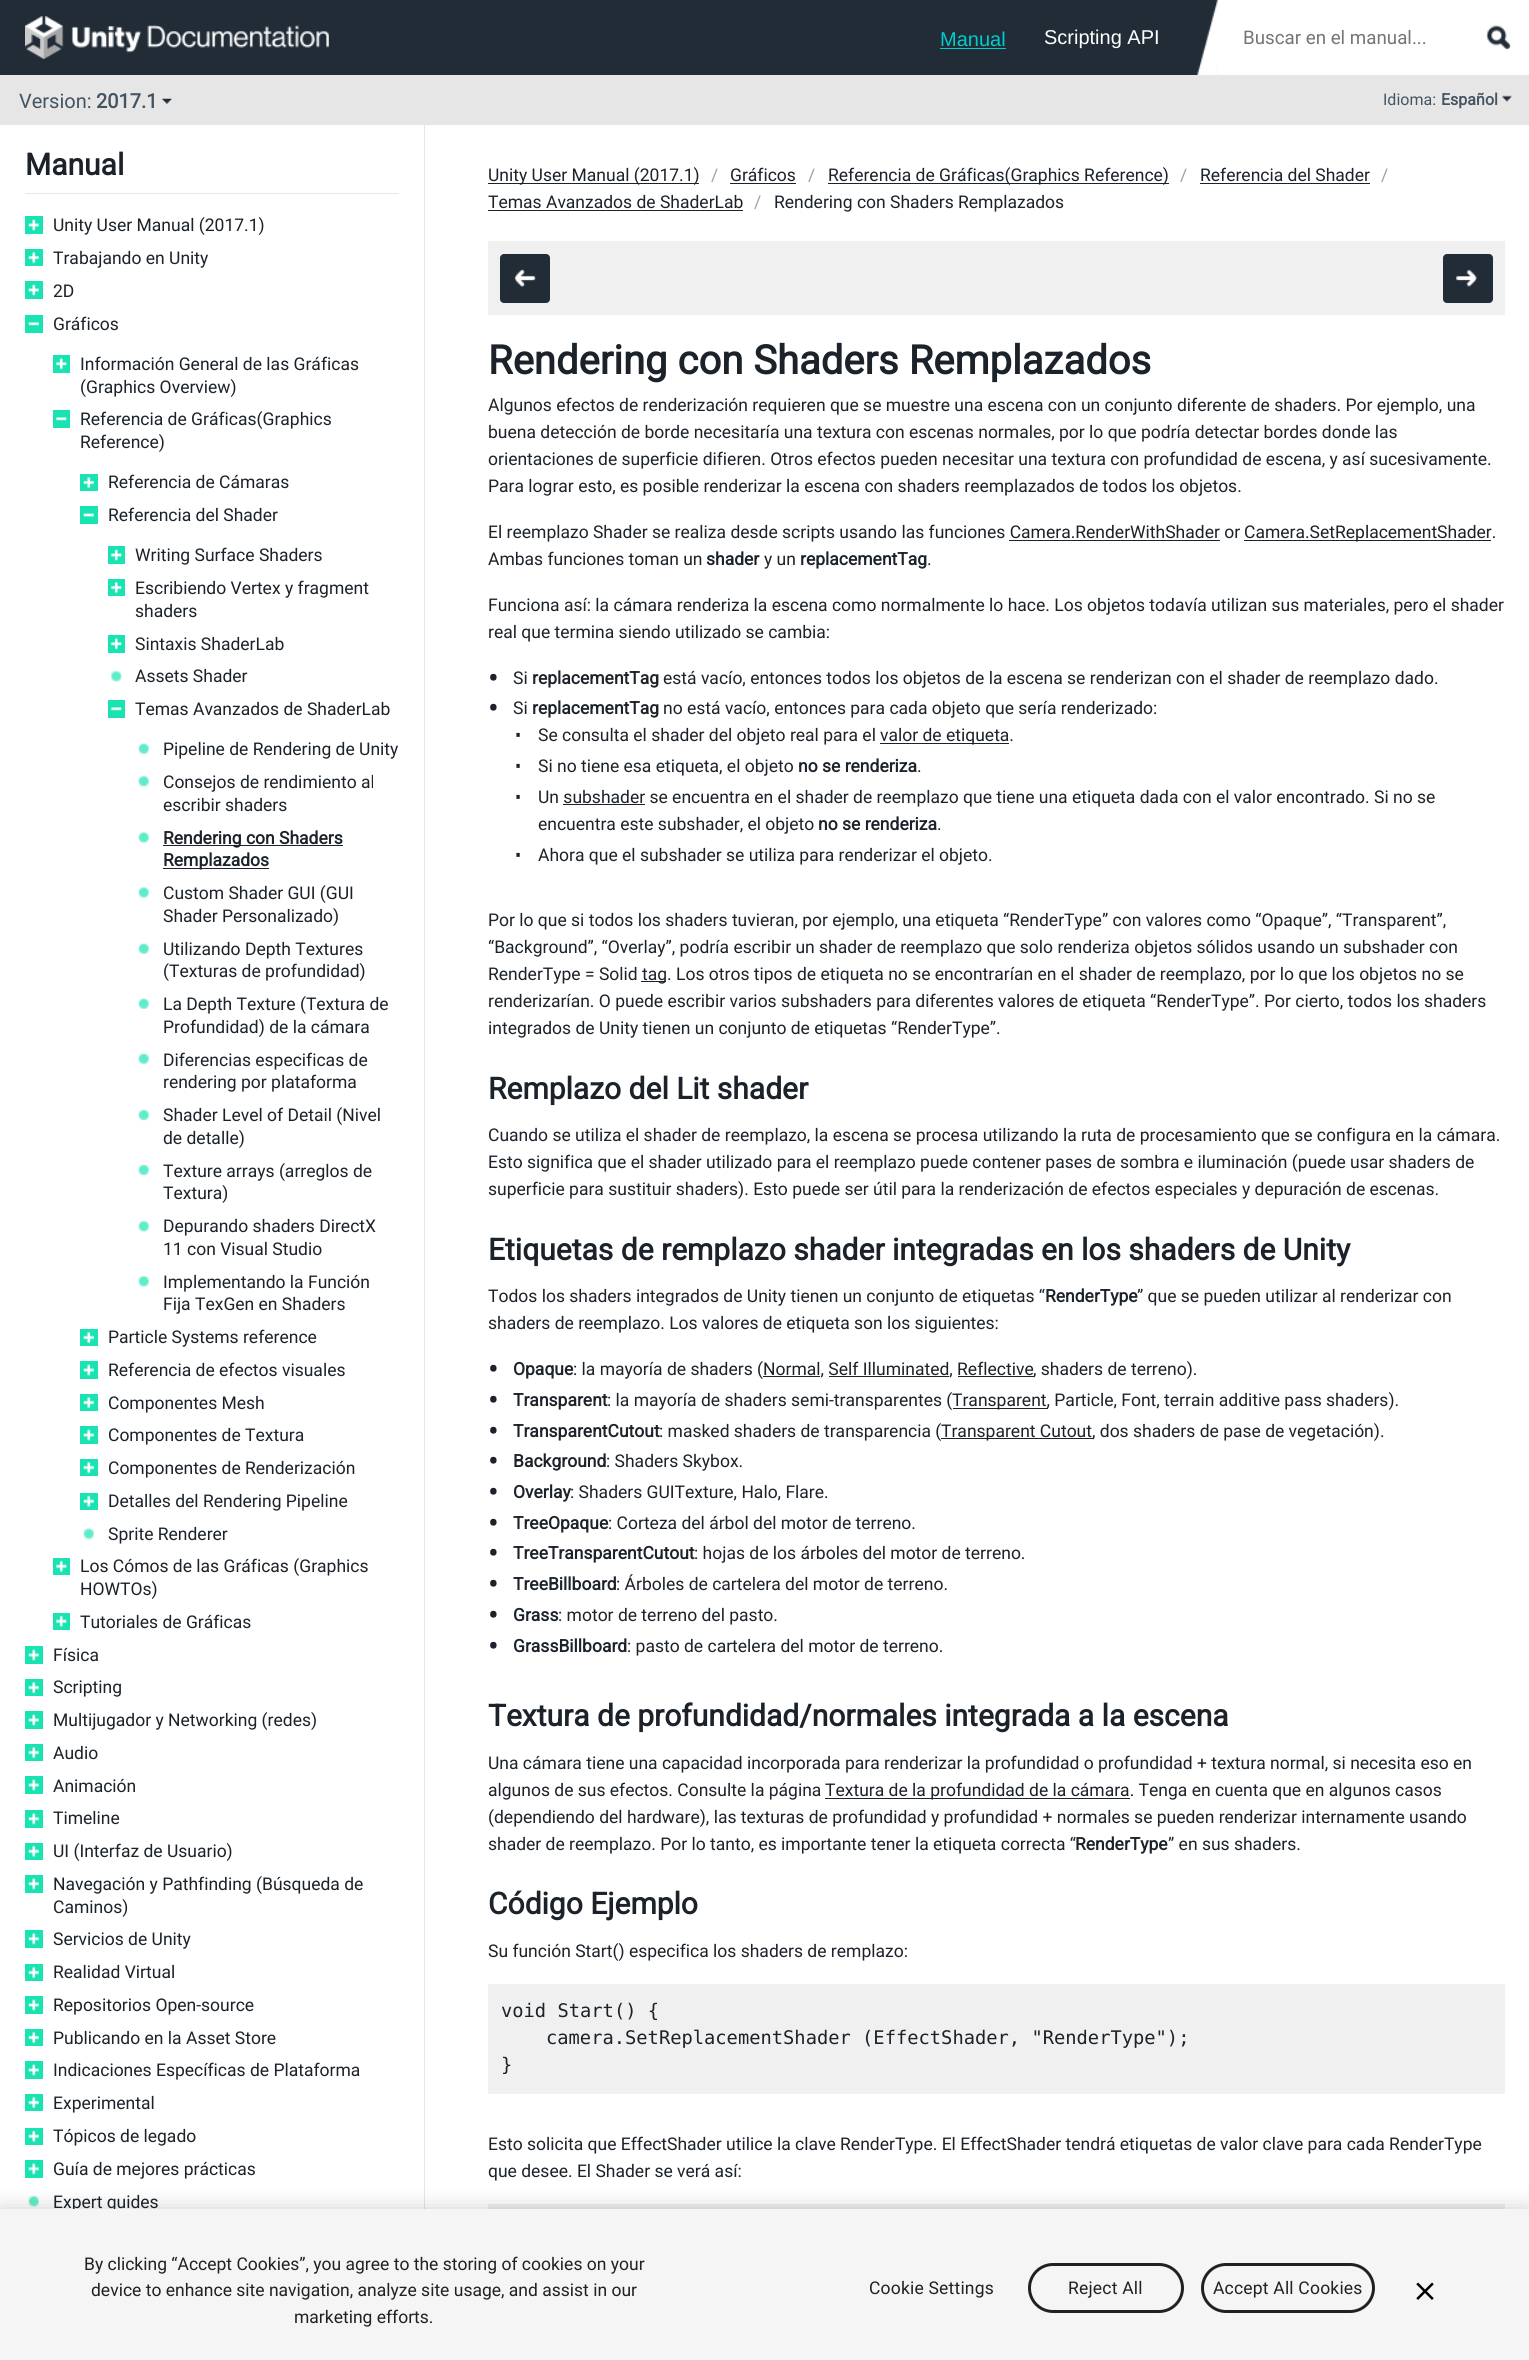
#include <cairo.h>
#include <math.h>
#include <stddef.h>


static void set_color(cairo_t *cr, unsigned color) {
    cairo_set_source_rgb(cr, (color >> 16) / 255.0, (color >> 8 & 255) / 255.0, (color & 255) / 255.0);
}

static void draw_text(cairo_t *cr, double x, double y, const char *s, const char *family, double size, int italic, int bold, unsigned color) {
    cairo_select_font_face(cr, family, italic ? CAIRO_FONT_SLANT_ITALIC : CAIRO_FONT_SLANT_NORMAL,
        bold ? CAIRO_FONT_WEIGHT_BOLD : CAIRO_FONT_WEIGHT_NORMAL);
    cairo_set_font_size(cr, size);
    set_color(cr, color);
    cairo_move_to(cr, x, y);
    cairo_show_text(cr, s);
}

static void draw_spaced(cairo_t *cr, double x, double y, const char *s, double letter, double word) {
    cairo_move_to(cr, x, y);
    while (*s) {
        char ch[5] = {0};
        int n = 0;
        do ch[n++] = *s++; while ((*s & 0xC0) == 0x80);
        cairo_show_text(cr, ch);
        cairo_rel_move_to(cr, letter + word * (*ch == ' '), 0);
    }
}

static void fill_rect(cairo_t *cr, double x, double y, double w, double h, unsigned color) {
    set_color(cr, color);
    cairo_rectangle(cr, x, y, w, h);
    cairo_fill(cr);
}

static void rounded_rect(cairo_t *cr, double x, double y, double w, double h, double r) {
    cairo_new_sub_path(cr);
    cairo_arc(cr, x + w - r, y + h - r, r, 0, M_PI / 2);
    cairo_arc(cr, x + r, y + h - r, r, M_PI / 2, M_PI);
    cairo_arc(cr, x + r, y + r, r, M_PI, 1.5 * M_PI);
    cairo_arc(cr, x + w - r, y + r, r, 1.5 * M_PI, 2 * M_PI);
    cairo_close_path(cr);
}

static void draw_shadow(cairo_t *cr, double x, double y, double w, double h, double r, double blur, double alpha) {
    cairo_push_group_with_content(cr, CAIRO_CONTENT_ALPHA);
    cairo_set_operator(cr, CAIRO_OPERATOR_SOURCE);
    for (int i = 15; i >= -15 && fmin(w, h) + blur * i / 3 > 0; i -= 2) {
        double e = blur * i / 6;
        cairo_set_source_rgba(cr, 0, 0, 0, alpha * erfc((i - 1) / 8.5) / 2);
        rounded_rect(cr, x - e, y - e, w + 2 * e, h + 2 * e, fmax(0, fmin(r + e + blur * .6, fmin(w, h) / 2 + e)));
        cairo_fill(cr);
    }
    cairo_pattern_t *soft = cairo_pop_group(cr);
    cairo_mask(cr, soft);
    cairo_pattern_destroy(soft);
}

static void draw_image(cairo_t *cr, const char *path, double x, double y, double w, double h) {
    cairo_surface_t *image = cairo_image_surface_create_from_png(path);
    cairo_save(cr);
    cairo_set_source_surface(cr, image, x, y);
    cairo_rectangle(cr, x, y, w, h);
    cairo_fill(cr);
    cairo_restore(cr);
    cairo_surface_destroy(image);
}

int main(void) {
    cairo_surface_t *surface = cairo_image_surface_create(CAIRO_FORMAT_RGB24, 1529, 2360);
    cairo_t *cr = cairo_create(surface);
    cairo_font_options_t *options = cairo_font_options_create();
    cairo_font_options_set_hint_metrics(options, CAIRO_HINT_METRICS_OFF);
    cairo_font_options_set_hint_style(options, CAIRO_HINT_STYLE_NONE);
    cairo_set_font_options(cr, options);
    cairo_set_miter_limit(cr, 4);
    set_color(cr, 0xFFFFFF);
    cairo_paint(cr);
    fill_rect(cr, 0, 0, 1218, 75, 0x222C37);
    draw_image(cr, "assets/img1.png", 25, 16, 304, 43);
    draw_text(cr, 940, 46, "Manual", "Liberation Sans", 20, 0, 0, 0x00CCCC);
    fill_rect(cr, 940, 48, 66, 1, 0x00CCCC);
    draw_text(cr, 1044, 44, "Scripting API", "Liberation Sans", 20, 0, 0, 0xFFFFFF);
    draw_image(cr, "assets/img2.png", 1197, 0, 21, 75);
    draw_text(cr, 1243, 44, "Buscar en el manual...", "Roboto", 18.75, 0, 0, 0x757575);
    draw_image(cr, "assets/img3.png", 1486, 25, 25, 25);
    fill_rect(cr, 0, 75, 1529, 50, 0xE6E6E6);
    draw_text(cr, 19, 108, "Version:", "Roboto", 20, 0, 0, 0x455463);
    draw_text(cr, 96, 108, "2017.1", "Roboto", 20, 0, 1, 0x455463);
    draw_image(cr, "assets/img4.png", 162, 98, 10, 6);
    draw_text(cr, 1383, 105, "Idioma:", "Roboto", 16, 0, 0, 0x455463);
    draw_text(cr, 1441, 105, "Español", "Roboto", 16, 0, 1, 0x455463);
    draw_image(cr, "assets/img5.png", 1502, 95, 10, 7);
    fill_rect(cr, 424, 125, 1, 2084, 0xE6E6E6);
    fill_rect(cr, 25, 193, 374, 1, 0xE6E6E6);
    draw_text(cr, 25, 175, "Manual", "Roboto", 30, 0, 1, 0x1B2229);
    fill_rect(cr, 25, 216, 18, 18, 0x19E3B1);
    draw_image(cr, "assets/img6.png", 28, 219, 11, 12);
    draw_text(cr, 53, 231, "Unity User Manual (2017.1)", "Roboto", 17.5, 0, 0, 0x1B2229);
    fill_rect(cr, 25, 249, 18, 17, 0x19E3B1);
    draw_image(cr, "assets/img7.png", 28, 252, 11, 12);
    draw_text(cr, 53, 264, "Trabajando en Unity", "Roboto", 17.5, 0, 0, 0x1B2229);
    fill_rect(cr, 25, 281, 18, 18, 0x19E3B1);
    draw_image(cr, "assets/img6.png", 28, 284, 11, 12);
    draw_text(cr, 53, 297, "2D", "Roboto", 17.5, 0, 0, 0x1B2229);
    fill_rect(cr, 25, 315, 18, 18, 0x19E3B1);
    draw_image(cr, "assets/img8.png", 28, 322, 11, 4);
    draw_text(cr, 53, 330, "Gráficos", "Roboto", 17.5, 0, 0, 0x1B2229);
    fill_rect(cr, 53, 355, 17, 18, 0x19E3B1);
    draw_image(cr, "assets/img9.png", 56, 358, 11, 12);
    draw_text(cr, 80, 370, "Información General de las Gráficas", "Roboto", 17.5, 0, 0, 0x1B2229);
    draw_text(cr, 80, 393, "(Graphics Overview)", "Roboto", 17.5, 0, 0, 0x1B2229);
    fill_rect(cr, 53, 410, 17, 18, 0x19E3B1);
    draw_image(cr, "assets/img10.png", 56, 417, 11, 4);
    draw_text(cr, 80, 425, "Referencia de Gráficas(Graphics", "Roboto", 17.5, 0, 0, 0x1B2229);
    draw_text(cr, 80, 448, "Reference)", "Roboto", 17.5, 0, 0, 0x1B2229);
    fill_rect(cr, 80, 474, 18, 17, 0x19E3B1);
    draw_image(cr, "assets/img7.png", 83, 477, 11, 12);
    draw_text(cr, 108, 488, "Referencia de Cámaras", "Roboto", 17.5, 0, 0, 0x1B2229);
    fill_rect(cr, 80, 506, 18, 18, 0x19E3B1);
    draw_image(cr, "assets/img11.png", 83, 513, 11, 5);
    draw_text(cr, 108, 521, "Referencia del Shader", "Roboto", 17.5, 0, 0, 0x1B2229);
    fill_rect(cr, 108, 546, 17, 18, 0x19E3B1);
    draw_image(cr, "assets/img12.png", 111, 549, 11, 12);
    draw_text(cr, 135, 561, "Writing Surface Shaders", "Roboto", 17.5, 0, 0, 0x1B2229);
    fill_rect(cr, 108, 579, 17, 17, 0x19E3B1);
    draw_image(cr, "assets/img13.png", 111, 582, 11, 12);
    draw_text(cr, 135, 594, "Escribiendo Vertex y fragment", "Roboto", 17.5, 0, 0, 0x1B2229);
    draw_text(cr, 135, 617, "shaders", "Roboto", 17.5, 0, 0, 0x1B2229);
    fill_rect(cr, 108, 635, 17, 18, 0x19E3B1);
    draw_image(cr, "assets/img9.png", 111, 638, 11, 12);
    draw_text(cr, 135, 650, "Sintaxis ShaderLab", "Roboto", 17.5, 0, 0, 0x1B2229);
    draw_image(cr, "assets/img14.png", 111, 670, 11, 12);
    draw_text(cr, 135, 682, "Assets Shader", "Roboto", 17.5, 0, 0, 0x1B2229);
    fill_rect(cr, 108, 700, 17, 18, 0x19E3B1);
    draw_image(cr, "assets/img10.png", 111, 707, 11, 4);
    draw_text(cr, 135, 715, "Temas Avanzados de ShaderLab", "Roboto", 17.5, 0, 0, 0x1B2229);
    draw_image(cr, "assets/img15.png", 138, 743, 11, 11);
    draw_text(cr, 163, 755, "Pipeline de Rendering de Unity", "Roboto", 17.5, 0, 0, 0x1B2229);
    draw_image(cr, "assets/img16.png", 138, 776, 11, 11);
    draw_text(cr, 163, 788, "Consejos de rendimiento al", "Roboto", 17.5, 0, 0, 0x1B2229);
    draw_text(cr, 163, 811, "escribir shaders", "Roboto", 17.5, 0, 0, 0x1B2229);
    draw_image(cr, "assets/img17.png", 138, 832, 11, 11);
    fill_rect(cr, 163, 845, 180, 1, 0x1B2229);
    draw_text(cr, 163, 844, "Rendering con Shaders", "Roboto", 17.5, 0, 1, 0x1B2229);
    fill_rect(cr, 163, 868, 106, 1, 0x1B2229);
    draw_text(cr, 163, 866, "Remplazados", "Roboto", 17.5, 0, 1, 0x1B2229);
    draw_image(cr, "assets/img17.png", 138, 887, 11, 11);
    draw_text(cr, 163, 899, "Custom Shader GUI (GUI", "Roboto", 17.5, 0, 0, 0x1B2229);
    draw_text(cr, 163, 922, "Shader Personalizado)", "Roboto", 17.5, 0, 0, 0x1B2229);
    draw_image(cr, "assets/img15.png", 138, 943, 11, 11);
    draw_text(cr, 163, 955, "Utilizando Depth Textures", "Roboto", 17.5, 0, 0, 0x1B2229);
    draw_text(cr, 163, 977, "(Texturas de profundidad)", "Roboto", 17.5, 0, 0, 0x1B2229);
    draw_image(cr, "assets/img15.png", 138, 998, 11, 11);
    draw_text(cr, 163, 1010, "La Depth Texture (Textura de", "Roboto", 17.5, 0, 0, 0x1B2229);
    draw_text(cr, 163, 1033, "Profundidad) de la cámara", "Roboto", 17.5, 0, 0, 0x1B2229);
    draw_image(cr, "assets/img15.png", 138, 1053, 11, 11);
    draw_text(cr, 163, 1066, "Diferencias especificas de", "Roboto", 17.5, 0, 0, 0x1B2229);
    draw_text(cr, 163, 1088, "rendering por plataforma", "Roboto", 17.5, 0, 0, 0x1B2229);
    draw_image(cr, "assets/img18.png", 138, 1109, 11, 12);
    draw_text(cr, 163, 1121, "Shader Level of Detail (Nivel", "Roboto", 17.5, 0, 0, 0x1B2229);
    draw_text(cr, 163, 1144, "de detalle)", "Roboto", 17.5, 0, 0, 0x1B2229);
    draw_image(cr, "assets/img18.png", 138, 1164, 11, 12);
    draw_text(cr, 163, 1177, "Texture arrays (arreglos de", "Roboto", 17.5, 0, 0, 0x1B2229);
    draw_text(cr, 163, 1199, "Textura)", "Roboto", 17.5, 0, 0, 0x1B2229);
    draw_image(cr, "assets/img16.png", 138, 1221, 11, 11);
    draw_text(cr, 163, 1232, "Depurando shaders DirectX", "Roboto", 17.5, 0, 0, 0x1B2229);
    draw_text(cr, 163, 1255, "11 con Visual Studio", "Roboto", 17.5, 0, 0, 0x1B2229);
    draw_image(cr, "assets/img16.png", 138, 1276, 11, 11);
    draw_text(cr, 163, 1288, "Implementando la Función", "Roboto", 17.5, 0, 0, 0x1B2229);
    draw_text(cr, 163, 1310, "Fija TexGen en Shaders", "Roboto", 17.5, 0, 0, 0x1B2229);
    fill_rect(cr, 80, 1329, 18, 17, 0x19E3B1);
    draw_image(cr, "assets/img19.png", 83, 1331, 11, 13);
    draw_text(cr, 108, 1343, "Particle Systems reference", "Roboto", 17.5, 0, 0, 0x1B2229);
    fill_rect(cr, 80, 1361, 18, 18, 0x19E3B1);
    draw_image(cr, "assets/img20.png", 83, 1364, 11, 12);
    draw_text(cr, 108, 1376, "Referencia de efectos visuales", "Roboto", 17.5, 0, 0, 0x1B2229);
    fill_rect(cr, 80, 1394, 18, 17, 0x19E3B1);
    draw_image(cr, "assets/img19.png", 83, 1396, 11, 13);
    draw_text(cr, 108, 1409, "Componentes Mesh", "Roboto", 17.5, 0, 0, 0x1B2229);
    fill_rect(cr, 80, 1426, 18, 18, 0x19E3B1);
    draw_image(cr, "assets/img20.png", 83, 1429, 11, 12);
    draw_text(cr, 108, 1441, "Componentes de Textura", "Roboto", 17.5, 0, 0, 0x1B2229);
    fill_rect(cr, 80, 1459, 18, 17, 0x19E3B1);
    draw_image(cr, "assets/img19.png", 83, 1461, 11, 13);
    draw_text(cr, 108, 1474, "Componentes de Renderización", "Roboto", 17.5, 0, 0, 0x1B2229);
    fill_rect(cr, 80, 1493, 18, 17, 0x19E3B1);
    draw_image(cr, "assets/img21.png", 83, 1495, 11, 12);
    draw_text(cr, 108, 1507, "Detalles del Rendering Pipeline", "Roboto", 17.5, 0, 0, 0x1B2229);
    draw_image(cr, "assets/img22.png", 83, 1528, 11, 12);
    draw_text(cr, 108, 1540, "Sprite Renderer", "Roboto", 17.5, 0, 0, 0x1B2229);
    fill_rect(cr, 53, 1558, 17, 17, 0x19E3B1);
    draw_image(cr, "assets/img23.png", 56, 1560, 11, 12);
    draw_text(cr, 80, 1572, "Los Cómos de las Gráficas (Graphics", "Roboto", 17.5, 0, 0, 0x1B2229);
    draw_text(cr, 80, 1595, "HOWTOs)", "Roboto", 17.5, 0, 0, 0x1B2229);
    fill_rect(cr, 53, 1613, 17, 17, 0x19E3B1);
    draw_image(cr, "assets/img23.png", 56, 1615, 11, 12);
    draw_text(cr, 80, 1628, "Tutoriales de Gráficas", "Roboto", 17.5, 0, 0, 0x1B2229);
    fill_rect(cr, 25, 1646, 18, 18, 0x19E3B1);
    draw_image(cr, "assets/img20.png", 28, 1649, 11, 12);
    draw_text(cr, 53, 1661, "Física", "Roboto", 17.5, 0, 0, 0x1B2229);
    fill_rect(cr, 25, 1679, 18, 17, 0x19E3B1);
    draw_image(cr, "assets/img19.png", 28, 1681, 11, 13);
    draw_text(cr, 53, 1693, "Scripting", "Roboto", 17.5, 0, 0, 0x1B2229);
    fill_rect(cr, 25, 1711, 18, 18, 0x19E3B1);
    draw_image(cr, "assets/img20.png", 28, 1714, 11, 12);
    draw_text(cr, 53, 1726, "Multijugador y Networking (redes)", "Roboto", 17.5, 0, 0, 0x1B2229);
    fill_rect(cr, 25, 1744, 18, 17, 0x19E3B1);
    draw_image(cr, "assets/img19.png", 28, 1746, 11, 13);
    draw_text(cr, 53, 1759, "Audio", "Roboto", 17.5, 0, 0, 0x1B2229);
    fill_rect(cr, 25, 1776, 18, 18, 0x19E3B1);
    draw_image(cr, "assets/img20.png", 28, 1779, 11, 12);
    draw_text(cr, 53, 1792, "Animación", "Roboto", 17.5, 0, 0, 0x1B2229);
    fill_rect(cr, 25, 1810, 18, 18, 0x19E3B1);
    draw_image(cr, "assets/img24.png", 28, 1813, 11, 12);
    draw_text(cr, 53, 1824, "Timeline", "Roboto", 17.5, 0, 0, 0x1B2229);
    fill_rect(cr, 25, 1843, 18, 17, 0x19E3B1);
    draw_image(cr, "assets/img21.png", 28, 1845, 11, 12);
    draw_text(cr, 53, 1857, "UI (Interfaz de Usuario)", "Roboto", 17.5, 0, 0, 0x1B2229);
    fill_rect(cr, 25, 1875, 18, 18, 0x19E3B1);
    draw_image(cr, "assets/img24.png", 28, 1878, 11, 12);
    draw_text(cr, 53, 1890, "Navegación y Pathfinding (Búsqueda de", "Roboto", 17.5, 0, 0, 0x1B2229);
    draw_text(cr, 53, 1913, "Caminos)", "Roboto", 17.5, 0, 0, 0x1B2229);
    fill_rect(cr, 25, 1930, 18, 18, 0x19E3B1);
    draw_image(cr, "assets/img24.png", 28, 1933, 11, 12);
    draw_text(cr, 53, 1945, "Servicios de Unity", "Roboto", 17.5, 0, 0, 0x1B2229);
    fill_rect(cr, 25, 1964, 18, 17, 0x19E3B1);
    draw_image(cr, "assets/img19.png", 28, 1966, 11, 13);
    draw_text(cr, 53, 1978, "Realidad Virtual", "Roboto", 17.5, 0, 0, 0x1B2229);
    fill_rect(cr, 25, 1996, 18, 18, 0x19E3B1);
    draw_image(cr, "assets/img20.png", 28, 1999, 11, 12);
    draw_text(cr, 53, 2011, "Repositorios Open-source", "Roboto", 17.5, 0, 0, 0x1B2229);
    fill_rect(cr, 25, 2029, 18, 17, 0x19E3B1);
    draw_image(cr, "assets/img19.png", 28, 2031, 11, 13);
    draw_text(cr, 53, 2044, "Publicando en la Asset Store", "Roboto", 17.5, 0, 0, 0x1B2229);
    fill_rect(cr, 25, 2061, 18, 18, 0x19E3B1);
    draw_image(cr, "assets/img20.png", 28, 2064, 11, 12);
    draw_text(cr, 53, 2076, "Indicaciones Específicas de Plataforma", "Roboto", 17.5, 0, 0, 0x1B2229);
    fill_rect(cr, 25, 2094, 18, 17, 0x19E3B1);
    draw_image(cr, "assets/img19.png", 28, 2096, 11, 13);
    draw_text(cr, 53, 2109, "Experimental", "Roboto", 17.5, 0, 0, 0x1B2229);
    fill_rect(cr, 25, 2128, 18, 17, 0x19E3B1);
    draw_image(cr, "assets/img21.png", 28, 2130, 11, 12);
    draw_text(cr, 53, 2142, "Tópicos de legado", "Roboto", 17.5, 0, 0, 0x1B2229);
    fill_rect(cr, 25, 2160, 18, 18, 0x19E3B1);
    draw_image(cr, "assets/img24.png", 28, 2163, 11, 12);
    draw_text(cr, 53, 2175, "Guía de mejores prácticas", "Roboto", 17.5, 0, 0, 0x1B2229);
    draw_image(cr, "assets/img25.png", 28, 2195, 11, 12);
    draw_text(cr, 53, 2208, "Expert guides", "Roboto", 17.5, 0, 0, 0x1B2229);
    fill_rect(cr, 488, 183, 211, 1, 0x1B2229);
    draw_text(cr, 488, 181, "Unity User Manual (2017.1)", "Roboto", 17.5, 0, 0, 0x1B2229);
    draw_text(cr, 711, 181, "/", "Roboto", 17.5, 0, 0, 0x99A0A7);
    draw_text(cr, 730, 181, "Gráficos", "Roboto", 17.5, 0, 0, 0x1B2229);
    fill_rect(cr, 730, 183, 66, 1, 0x1B2229);
    draw_text(cr, 808, 181, "/", "Roboto", 17.5, 0, 0, 0x99A0A7);
    fill_rect(cr, 828, 183, 341, 1, 0x1B2229);
    draw_text(cr, 828, 181, "Referencia de Gráficas(Graphics Reference)", "Roboto", 17.5, 0, 0, 0x1B2229);
    draw_text(cr, 1180, 181, "/", "Roboto", 17.5, 0, 0, 0x99A0A7);
    draw_text(cr, 1200, 181, "Referencia del Shader", "Roboto", 17.5, 0, 0, 0x1B2229);
    fill_rect(cr, 1200, 183, 170, 1, 0x1B2229);
    draw_text(cr, 1381, 181, "/", "Roboto", 17.5, 0, 0, 0x99A0A7);
    draw_text(cr, 488, 208, "Temas Avanzados de ShaderLab", "Roboto", 17.5, 0, 0, 0x1B2229);
    fill_rect(cr, 488, 210, 255, 1, 0x1B2229);
    draw_text(cr, 754, 208, "/", "Roboto", 17.5, 0, 0, 0x99A0A7);
    draw_text(cr, 774, 208, "Rendering con Shaders Remplazados", "Roboto", 17.5, 0, 0, 0x1B2229);
    fill_rect(cr, 488, 241, 1017, 74, 0xF0F0F0);
    set_color(cr, 0x222C37);
    rounded_rect(cr, 500, 254, 50, 49, 4);
    cairo_fill(cr);
    draw_image(cr, "assets/img26.png", 514, 269, 22, 18);
    rounded_rect(cr, 1443, 254, 50, 49, 4);
    cairo_fill(cr);
    draw_image(cr, "assets/img27.png", 1456, 269, 21, 18);
    draw_text(cr, 488, 374, "Rendering con Shaders Remplazados", "Roboto", 40, 0, 1, 0x1B2229);
    draw_text(cr, 488, 411, "Algunos efectos de renderización requieren que se muestre una escena con un conjunto diferente de shaders. Por ejemplo, una", "Roboto", 17.5, 0, 0, 0x1B2229);
    draw_text(cr, 488, 438, "buena detección de borde necesitaría una textura con escenas normales, por lo que podría detectar bordes donde las", "Roboto", 17.5, 0, 0, 0x1B2229);
    draw_text(cr, 488, 465, "orientaciones de superficie difieren. Otros efectos pueden necesitar una textura con profundidad de escena, y así sucesivamente.", "Roboto", 17.5, 0, 0, 0x1B2229);
    draw_text(cr, 488, 492, "Para lograr esto, es posible renderizar la escena con shaders reemplazados de todos los objetos.", "Roboto", 17.5, 0, 0, 0x1B2229);
    draw_text(cr, 488, 538, "El reemplazo Shader se realiza desde scripts usando las funciones Camera.RenderWithShader or", "Roboto", 17.5, 0, 0, 0x1B2229);
    fill_rect(cr, 1244, 540, 247, 1, 0x1B2229);
    draw_text(cr, 1244, 538, "Camera.SetReplacementShader.", "Roboto", 17.5, 0, 0, 0x1B2229);
    fill_rect(cr, 1009, 540, 211, 1, 0x1B2229);
    draw_text(cr, 488, 565, "Ambas funciones toman un", "Roboto", 17.5, 0, 0, 0x1B2229);
    draw_text(cr, 706, 565, "shader", "Roboto", 17.5, 0, 1, 0x1B2229);
    draw_text(cr, 764, 565, "y un", "Roboto", 17.5, 0, 0, 0x1B2229);
    draw_text(cr, 800, 565, "replacementTag", "Roboto", 17.5, 0, 1, 0x1B2229);
    draw_text(cr, 927, 565, ".", "Roboto", 17.5, 0, 0, 0x1B2229);
    draw_text(cr, 488, 611, "Funciona así: la cámara renderiza la escena como normalmente lo hace. Los objetos todavía utilizan sus materiales, pero el shader", "Roboto", 17.5, 0, 0, 0x1B2229);
    draw_text(cr, 488, 638, "real que termina siendo utilizado se cambia:", "Roboto", 17.5, 0, 0, 0x1B2229);
    draw_text(cr, 488, 689, "•", "Roboto", 32, 0, 0, 0x1B2229);
    draw_text(cr, 513, 684, "Si", "Roboto", 17.5, 0, 0, 0x1B2229);
    draw_text(cr, 532, 684, "replacementTag", "Roboto", 17.5, 0, 1, 0x1B2229);
    draw_text(cr, 663, 684, "está vacío, entonces todos los objetos de la escena se renderizan con el shader de reemplazo dado.", "Roboto", 17.5, 0, 0, 0x1B2229);
    draw_text(cr, 488, 719, "•", "Roboto", 32, 0, 0, 0x1B2229);
    draw_text(cr, 513, 714, "Si", "Roboto", 17.5, 0, 0, 0x1B2229);
    draw_text(cr, 532, 714, "replacementTag", "Roboto", 17.5, 0, 1, 0x1B2229);
    draw_text(cr, 663, 714, "no está vacío, entonces para cada objeto que sería renderizado:", "Roboto", 17.5, 0, 0, 0x1B2229);
    draw_text(cr, 513, 746, "⋅", "DejaVu Sans", 32, 0, 0, 0x1B2229);
    draw_text(cr, 538, 741, "Se consulta el shader del objeto real para el", "Roboto", 17.5, 0, 0, 0x1B2229);
    fill_rect(cr, 880, 743, 129, 1, 0x1B2229);
    draw_text(cr, 880, 741, "valor de etiqueta.", "Roboto", 17.5, 0, 0, 0x1B2229);
    draw_text(cr, 513, 777, "⋅", "DejaVu Sans", 32, 0, 0, 0x1B2229);
    draw_text(cr, 538, 772, "Si no tiene esa etiqueta, el objeto", "Roboto", 17.5, 0, 0, 0x1B2229);
    draw_text(cr, 798, 772, "no se renderiza", "Roboto", 17.5, 0, 1, 0x1B2229);
    draw_text(cr, 917, 772, ".", "Roboto", 17.5, 0, 0, 0x1B2229);
    draw_text(cr, 513, 808, "⋅", "DejaVu Sans", 32, 0, 0, 0x1B2229);
    draw_text(cr, 538, 803, "Un subshader se encuentra en el shader de reemplazo que tiene una etiqueta dada con el valor encontrado. Si no se", "Roboto", 17.5, 0, 0, 0x1B2229);
    fill_rect(cr, 563, 804, 82, 1, 0x1B2229);
    draw_text(cr, 538, 830, "encuentra este subshader, el objeto", "Roboto", 17.5, 0, 0, 0x1B2229);
    draw_text(cr, 818, 830, "no se renderiza", "Roboto", 17.5, 0, 1, 0x1B2229);
    draw_text(cr, 937, 830, ".", "Roboto", 17.5, 0, 0, 0x1B2229);
    draw_text(cr, 513, 866, "⋅", "DejaVu Sans", 32, 0, 0, 0x1B2229);
    draw_text(cr, 538, 861, "Ahora que el subshader se utiliza para renderizar el objeto.", "Roboto", 17.5, 0, 0, 0x1B2229);
    draw_text(cr, 488, 926, "Por lo que si todos los shaders tuvieran, por ejemplo, una etiqueta “RenderType” con valores como “Opaque”, “Transparent”,", "Roboto", 17.5, 0, 0, 0x1B2229);
    draw_text(cr, 488, 953, "“Background”, “Overlay”, podría escribir un shader de reemplazo que solo renderiza objetos sólidos usando un subshader con", "Roboto", 17.5, 0, 0, 0x1B2229);
    draw_text(cr, 488, 980, "RenderType = Solid", "Roboto", 17.5, 0, 0, 0x1B2229);
    fill_rect(cr, 641, 981, 25, 1, 0x1B2229);
    draw_text(cr, 642, 980, "tag. Los otros tipos de etiqueta no se encontrarían en el shader de reemplazo, por lo que los objetos no se", "Roboto", 17.5, 0, 0, 0x1B2229);
    draw_text(cr, 488, 1007, "renderizarían. O puede escribir varios subshaders para diferentes valores de etiqueta “RenderType”. Por cierto, todos los shaders", "Roboto", 17.5, 0, 0, 0x1B2229);
    draw_text(cr, 488, 1034, "integrados de Unity tienen un conjunto de etiquetas “RenderType”.", "Roboto", 17.5, 0, 0, 0x1B2229);
    draw_text(cr, 488, 1099, "Remplazo del Lit shader", "Roboto", 30, 0, 1, 0x1B2229);
    draw_text(cr, 488, 1141, "Cuando se utiliza el shader de reemplazo, la escena se procesa utilizando la ruta de procesamiento que se configura en la cámara.", "Roboto", 17.5, 0, 0, 0x1B2229);
    draw_text(cr, 488, 1168, "Esto significa que el shader utilizado para el reemplazo puede contener pases de sombra e iluminación (puede usar shaders de", "Roboto", 17.5, 0, 0, 0x1B2229);
    draw_text(cr, 488, 1195, "superficie para sustituir shaders). Esto puede ser útil para la renderización de efectos especiales y depuración de escenas.", "Roboto", 17.5, 0, 0, 0x1B2229);
    draw_text(cr, 488, 1260, "Etiquetas de remplazo shader integradas en los shaders de Unity", "Roboto", 30, 0, 1, 0x1B2229);
    draw_text(cr, 488, 1302, "Todos los shaders integrados de Unity tienen un conjunto de etiquetas “", "Roboto", 17.5, 0, 0, 0x1B2229);
    draw_text(cr, 1045, 1302, "RenderType", "Roboto", 17.5, 0, 1, 0x1B2229);
    draw_text(cr, 1137, 1302, "” que se pueden utilizar al renderizar con", "Roboto", 17.5, 0, 0, 0x1B2229);
    draw_text(cr, 488, 1329, "shaders de reemplazo. Los valores de etiqueta son los siguientes:", "Roboto", 17.5, 0, 0, 0x1B2229);
    draw_text(cr, 488, 1380, "•", "Roboto", 32, 0, 0, 0x1B2229);
    draw_text(cr, 513, 1375, "Opaque", "Roboto", 17.5, 0, 1, 0x1B2229);
    draw_text(cr, 573, 1375, ": la mayoría de shaders (Normal, Self Illuminated, Reflective", "Roboto", 17.5, 0, 0, 0x1B2229);
    fill_rect(cr, 958, 1376, 76, 1, 0x1B2229);
    draw_text(cr, 1033, 1375, ", shaders de terreno).", "Roboto", 17.5, 0, 0, 0x1B2229);
    fill_rect(cr, 763, 1376, 57, 1, 0x1B2229);
    fill_rect(cr, 829, 1376, 120, 1, 0x1B2229);
    draw_text(cr, 488, 1411, "•", "Roboto", 32, 0, 0, 0x1B2229);
    draw_text(cr, 513, 1406, "Transparent", "Roboto", 17.5, 0, 1, 0x1B2229);
    draw_text(cr, 607, 1406, ": la mayoría de shaders semi-transparentes (", "Roboto", 17.5, 0, 0, 0x1B2229);
    fill_rect(cr, 953, 1408, 95, 1, 0x1B2229);
    draw_text(cr, 952, 1406, "Transparent, Particle, Font, terrain additive pass shaders).", "Roboto", 17.5, 0, 0, 0x1B2229);
    draw_text(cr, 488, 1442, "•", "Roboto", 32, 0, 0, 0x1B2229);
    draw_text(cr, 513, 1437, "TransparentCutout", "Roboto", 17.5, 0, 1, 0x1B2229);
    draw_text(cr, 659, 1437, ": masked shaders de transparencia (", "Roboto", 17.5, 0, 0, 0x1B2229);
    fill_rect(cr, 941, 1438, 152, 1, 0x1B2229);
    draw_text(cr, 941, 1437, "Transparent Cutout, dos shaders de pase de vegetación).", "Roboto", 17.5, 0, 0, 0x1B2229);
    draw_text(cr, 488, 1472, "•", "Roboto", 32, 0, 0, 0x1B2229);
    draw_text(cr, 513, 1467, "Background", "Roboto", 17.5, 0, 1, 0x1B2229);
    draw_text(cr, 606, 1467, ": Shaders Skybox.", "Roboto", 17.5, 0, 0, 0x1B2229);
    draw_text(cr, 488, 1503, "•", "Roboto", 32, 0, 0, 0x1B2229);
    draw_text(cr, 513, 1498, "Overlay", "Roboto", 17.5, 0, 1, 0x1B2229);
    draw_text(cr, 570, 1498, ": Shaders GUITexture, Halo, Flare.", "Roboto", 17.5, 0, 0, 0x1B2229);
    draw_text(cr, 488, 1534, "•", "Roboto", 32, 0, 0, 0x1B2229);
    draw_text(cr, 513, 1529, "TreeOpaque", "Roboto", 17.5, 0, 1, 0x1B2229);
    draw_text(cr, 608, 1529, ": Corteza del árbol del motor de terreno.", "Roboto", 17.5, 0, 0, 0x1B2229);
    draw_text(cr, 488, 1564, "•", "Roboto", 32, 0, 0, 0x1B2229);
    draw_text(cr, 513, 1559, "TreeTransparentCutout", "Roboto", 17.5, 0, 1, 0x1B2229);
    draw_text(cr, 694, 1559, ": hojas de los árboles del motor de terreno.", "Roboto", 17.5, 0, 0, 0x1B2229);
    draw_text(cr, 488, 1595, "•", "Roboto", 32, 0, 0, 0x1B2229);
    draw_text(cr, 513, 1590, "TreeBillboard", "Roboto", 17.5, 0, 1, 0x1B2229);
    draw_text(cr, 616, 1590, ": Árboles de cartelera del motor de terreno.", "Roboto", 17.5, 0, 0, 0x1B2229);
    draw_text(cr, 488, 1626, "•", "Roboto", 32, 0, 0, 0x1B2229);
    draw_text(cr, 513, 1621, "Grass", "Roboto", 17.5, 0, 1, 0x1B2229);
    draw_text(cr, 558, 1621, ": motor de terreno del pasto.", "Roboto", 17.5, 0, 0, 0x1B2229);
    draw_text(cr, 488, 1657, "•", "Roboto", 32, 0, 0, 0x1B2229);
    draw_text(cr, 513, 1652, "GrassBillboard", "Roboto", 17.5, 0, 1, 0x1B2229);
    draw_text(cr, 627, 1652, ": pasto de cartelera del motor de terreno.", "Roboto", 17.5, 0, 0, 0x1B2229);
    draw_text(cr, 488, 1726, "Textura de profundidad/normales integrada a la escena", "Roboto", 30, 0, 1, 0x1B2229);
    draw_text(cr, 488, 1769, "Una cámara tiene una capacidad incorporada para renderizar la profundidad o profundidad + textura normal, si necesita eso en", "Roboto", 17.5, 0, 0, 0x1B2229);
    draw_text(cr, 488, 1796, "algunos de sus efectos. Consulte la página", "Roboto", 17.5, 0, 0, 0x1B2229);
    fill_rect(cr, 825, 1798, 305, 1, 0x1B2229);
    draw_text(cr, 825, 1796, "Textura de la profundidad de la cámara. Tenga en cuenta que en algunos casos", "Roboto", 17.5, 0, 0, 0x1B2229);
    draw_text(cr, 488, 1823, "(dependiendo del hardware), las texturas de profundidad y profundidad + normales se pueden renderizar internamente usando", "Roboto", 17.5, 0, 0, 0x1B2229);
    draw_text(cr, 488, 1850, "shader de reemplazo. Por lo tanto, es importante tener la etiqueta correcta “", "Roboto", 17.5, 0, 0, 0x1B2229);
    draw_text(cr, 1075, 1850, "RenderType", "Roboto", 17.5, 0, 1, 0x1B2229);
    draw_text(cr, 1168, 1850, "” en sus shaders.", "Roboto", 17.5, 0, 0, 0x1B2229);
    draw_text(cr, 488, 1914, "Código Ejemplo", "Roboto", 30, 0, 1, 0x1B2229);
    draw_text(cr, 488, 1957, "Su función Start() especifica los shaders de remplazo:", "Roboto", 17.5, 0, 0, 0x1B2229);
    fill_rect(cr, 488, 1984, 1017, 110, 0xF0F0F0);
    draw_text(cr, 501, 2017, "void Start() {", "DejaVu Sans Mono", 18.75, 0, 0, 0x1B2229);
    draw_text(cr, 546, 2044, "camera.SetReplacementShader (EffectShader, \"RenderType\");", "DejaVu Sans Mono", 18.75, 0, 0, 0x1B2229);
    draw_text(cr, 501, 2071, "}", "DejaVu Sans Mono", 18.75, 0, 0, 0x1B2229);
    draw_text(cr, 488, 2150, "Esto solicita que EffectShader utilice la clave RenderType. El EffectShader tendrá etiquetas de valor clave para cada RenderType", "Roboto", 17.5, 0, 0, 0x1B2229);
    draw_text(cr, 488, 2177, "que desee. El Shader se verá así:", "Roboto", 17.5, 0, 0, 0x1B2229);
    fill_rect(cr, 488, 2204, 1017, 5, 0xF0F0F0);
    set_color(cr, 0x000000);
    draw_shadow(cr, 0, 2209, 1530, 151, 0, 11, 0.2);
    fill_rect(cr, 0, 2209, 1529, 151, 0xF5F5F5);
    draw_text(cr, 84, 2270, "By clicking “Accept Cookies”, you agree to the storing of cookies on your", "Roboto", 17.5, 0, 0, 0x212121);
    draw_text(cr, 91, 2296, "device to enhance site navigation, analyze site usage, and assist in our", "Roboto", 17.5, 0, 0, 0x212121);
    draw_text(cr, 294, 2323, "marketing efforts.", "Roboto", 17.5, 0, 0, 0x212121);
    draw_spaced(cr, 869, 2294, "Cookie Settings", 0.2, 0);
    rounded_rect(cr, 1029.5, 2264.5, 153, 47, 23.5);
    cairo_set_line_width(cr, 3);
    cairo_stroke(cr);
    draw_spaced(cr, 1068, 2294, "Reject All", 0.2, 0);
    rounded_rect(cr, 1202.5, 2264.5, 171, 47, 23.5);
    cairo_stroke(cr);
    draw_spaced(cr, 1213, 2294, "Accept All Cookies", 0.2, 0);
    draw_image(cr, "assets/img28.png", 1416, 2282, 18, 18);
    cairo_surface_write_to_png(surface, "output.png");
    cairo_font_options_destroy(options);
    cairo_destroy(cr);
    cairo_surface_destroy(surface);
    return 0;
}
